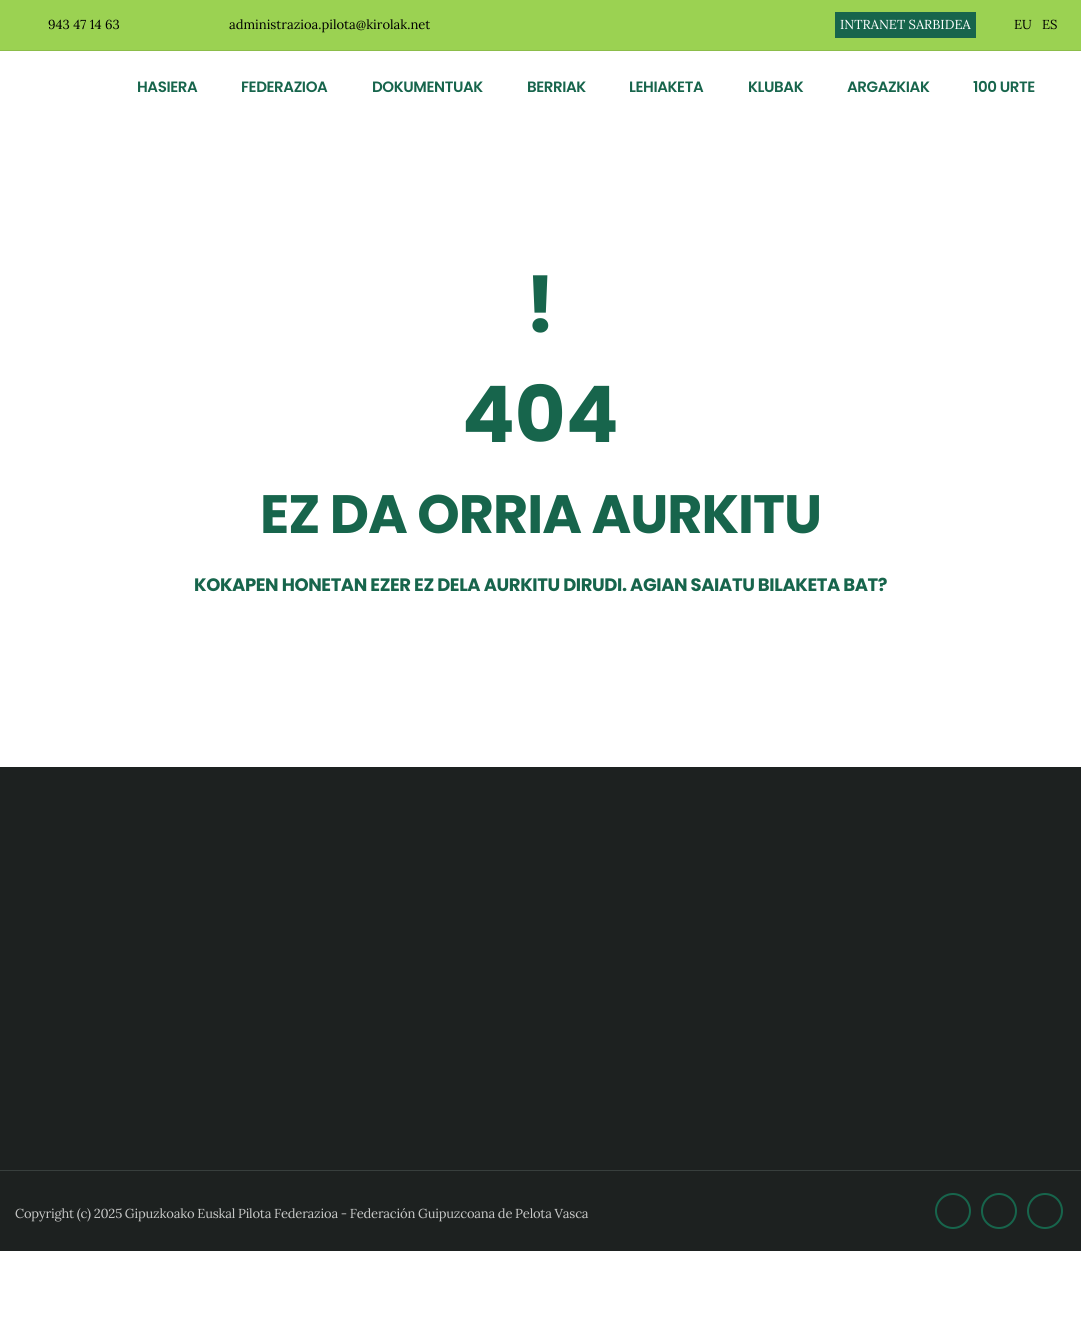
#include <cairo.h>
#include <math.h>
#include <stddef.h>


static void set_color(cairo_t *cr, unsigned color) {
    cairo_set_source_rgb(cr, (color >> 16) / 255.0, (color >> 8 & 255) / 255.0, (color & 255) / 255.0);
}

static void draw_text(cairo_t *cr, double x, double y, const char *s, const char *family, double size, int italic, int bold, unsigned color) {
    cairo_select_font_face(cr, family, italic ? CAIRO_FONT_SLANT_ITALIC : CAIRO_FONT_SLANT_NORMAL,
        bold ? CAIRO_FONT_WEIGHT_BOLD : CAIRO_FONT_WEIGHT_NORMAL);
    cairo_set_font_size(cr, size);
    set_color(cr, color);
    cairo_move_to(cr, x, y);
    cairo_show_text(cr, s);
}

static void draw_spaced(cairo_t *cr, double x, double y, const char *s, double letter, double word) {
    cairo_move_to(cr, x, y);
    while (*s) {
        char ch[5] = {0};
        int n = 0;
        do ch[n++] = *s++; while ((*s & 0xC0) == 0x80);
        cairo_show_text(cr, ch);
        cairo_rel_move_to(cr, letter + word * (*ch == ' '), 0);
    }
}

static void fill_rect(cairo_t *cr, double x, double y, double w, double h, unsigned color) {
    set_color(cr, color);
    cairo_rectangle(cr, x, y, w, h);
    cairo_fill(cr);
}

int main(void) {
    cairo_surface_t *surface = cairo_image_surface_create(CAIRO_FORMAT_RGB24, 1081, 1319);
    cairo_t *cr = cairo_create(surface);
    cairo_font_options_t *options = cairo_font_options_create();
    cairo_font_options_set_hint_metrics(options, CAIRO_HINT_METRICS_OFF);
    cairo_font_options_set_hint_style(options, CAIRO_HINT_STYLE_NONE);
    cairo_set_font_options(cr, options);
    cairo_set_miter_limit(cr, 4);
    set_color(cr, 0x1D2120);
    cairo_paint(cr);
    fill_rect(cr, 0, 51, 1081, 716, 0xFFFFFF);
    fill_rect(cr, 0, 0, 1081, 50, 0x9BD252);
    fill_rect(cr, 0, 50, 1081, 1, 0x8CBD4A);
    draw_text(cr, 48, 29, "943 47 14 63", "Lora", 13, 0, 0, 0x000000);
    draw_text(cr, 229, 29, "administrazioa.pilota@kirolak.net", "Lora", 13, 0, 0, 0x000000);
    fill_rect(cr, 835, 12, 141, 26, 0x17654C);
    draw_text(cr, 840, 29, "INTRANET SARBIDEA", "Lora", 13, 0, 0, 0xFFFFFF);
    draw_text(cr, 1014, 29, "EU", "Lora", 13, 0, 0, 0x000000);
    draw_text(cr, 1042, 29, "ES", "Lora", 13, 0, 0, 0x000000);
    cairo_select_font_face(cr, "Poppins SemiBold", CAIRO_FONT_SLANT_NORMAL, CAIRO_FONT_WEIGHT_NORMAL);
    cairo_set_font_size(cr, 15);
    set_color(cr, 0x17654C);
    draw_spaced(cr, 137, 92, "HASIERA", -0.4, 0);
    draw_spaced(cr, 241, 92, "FEDERAZIOA", -0.4, 0);
    draw_spaced(cr, 372, 92, "DOKUMENTUAK", -0.4, 0);
    draw_spaced(cr, 527, 92, "BERRIAK", -0.4, 0);
    draw_spaced(cr, 629, 92, "LEHIAKETA", -0.4, 0);
    draw_spaced(cr, 748, 92, "KLUBAK", -0.4, 0);
    draw_spaced(cr, 847, 92, "ARGAZKIAK", -0.4, 0);
    draw_spaced(cr, 973, 92, "100 URTE", -0.4, 0);
    draw_text(cr, 525, 332, "!", "Poppins", 78, 0, 1, 0x17654C);
    draw_text(cr, 462, 442, "404", "Poppins", 78, 0, 1, 0x17654C);
    cairo_set_font_size(cr, 54);
    draw_spaced(cr, 260, 533, "EZ DA ORRIA AURKITU", -1, 0);
    cairo_set_font_size(cr, 18);
    draw_spaced(cr, 194, 591, "KOKAPEN HONETAN EZER EZ DELA AURKITU DIRUDI. AGIAN SAIATU BILAKETA BAT?", -0.4, 0);
    fill_rect(cr, 0, 1170, 1081, 1, 0x383F3D);
    cairo_select_font_face(cr, "Lora", CAIRO_FONT_SLANT_NORMAL, CAIRO_FONT_WEIGHT_NORMAL);
    cairo_set_font_size(cr, 13);
    set_color(cr, 0xC7C8C7);
    draw_spaced(cr, 15, 1218, "Copyright (c) 2025 Gipuzkoako Euskal Pilota Federazioa - Federación Guipuzcoana de Pelota Vasca", -0.2, -0.4);
    cairo_new_path(cr);
    cairo_arc(cr, 953, 1211, 17, 0, 2 * M_PI);
    set_color(cr, 0x17654C);
    cairo_stroke(cr);
    cairo_arc(cr, 999, 1211, 17, 0, 2 * M_PI);
    cairo_stroke(cr);
    cairo_arc(cr, 1045, 1211, 17, 0, 2 * M_PI);
    cairo_stroke(cr);
    fill_rect(cr, 0, 1251, 1081, 68, 0xFFFFFF);
    cairo_surface_write_to_png(surface, "output.png");
    cairo_font_options_destroy(options);
    cairo_destroy(cr);
    cairo_surface_destroy(surface);
    return 0;
}
